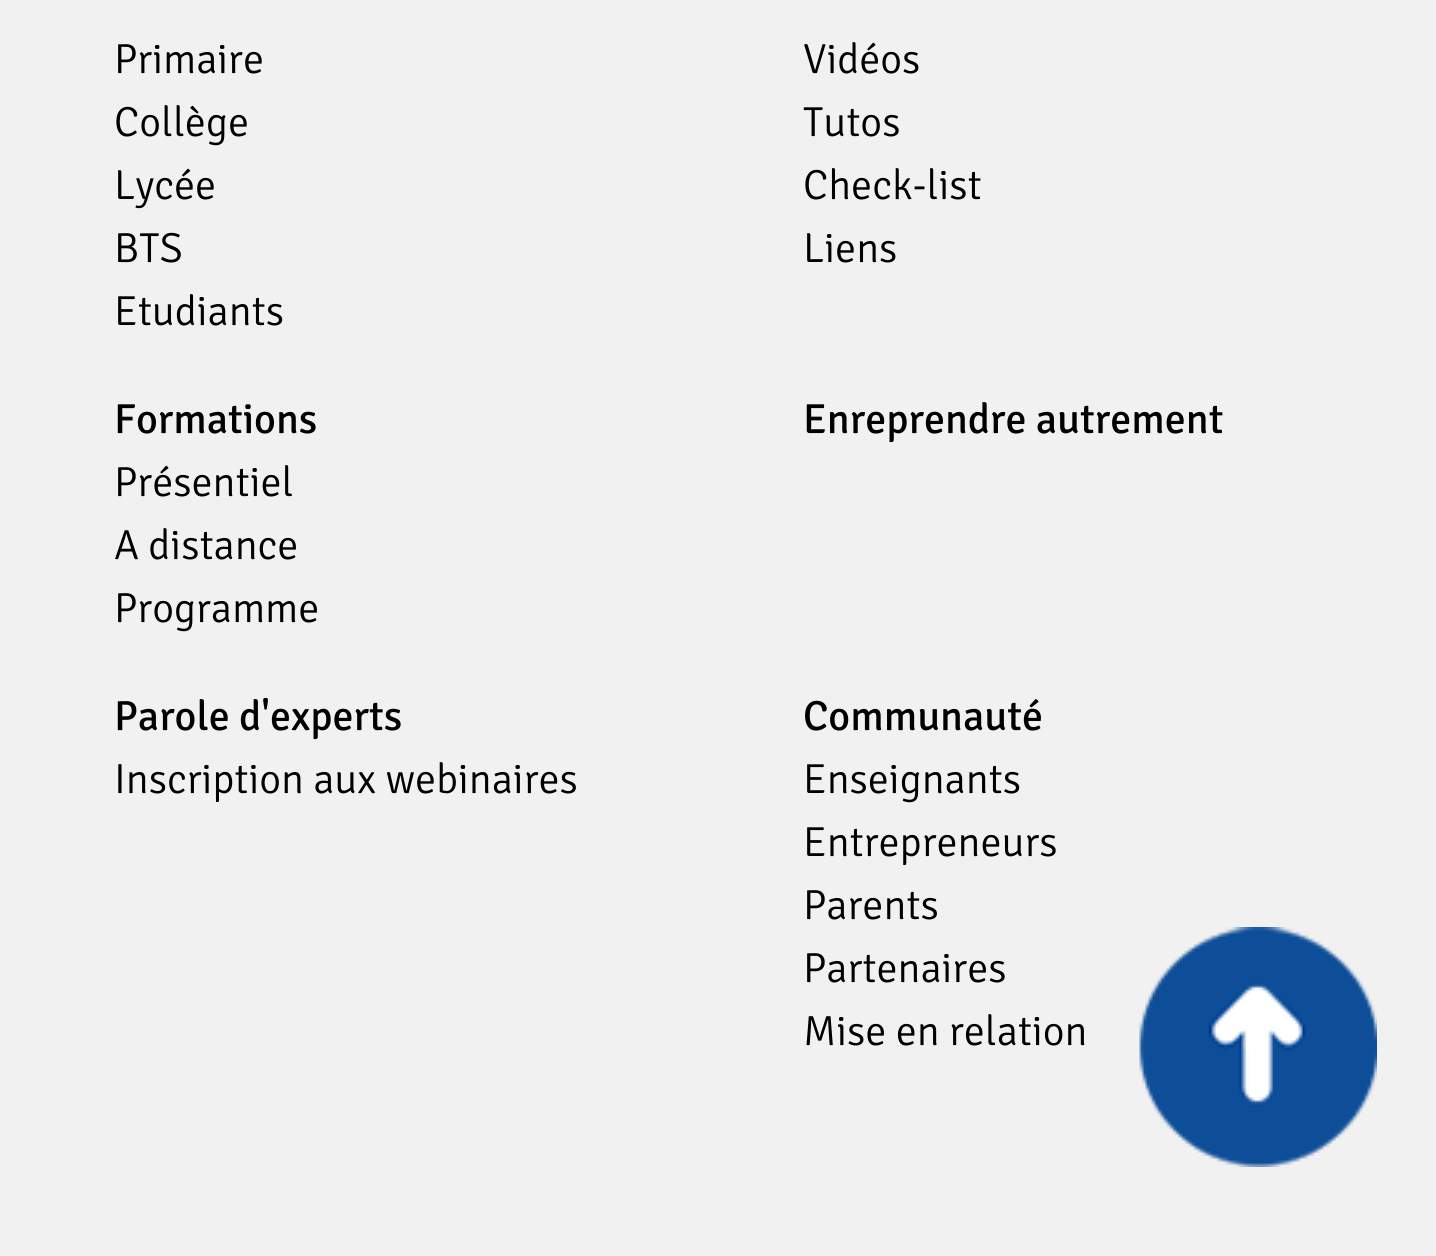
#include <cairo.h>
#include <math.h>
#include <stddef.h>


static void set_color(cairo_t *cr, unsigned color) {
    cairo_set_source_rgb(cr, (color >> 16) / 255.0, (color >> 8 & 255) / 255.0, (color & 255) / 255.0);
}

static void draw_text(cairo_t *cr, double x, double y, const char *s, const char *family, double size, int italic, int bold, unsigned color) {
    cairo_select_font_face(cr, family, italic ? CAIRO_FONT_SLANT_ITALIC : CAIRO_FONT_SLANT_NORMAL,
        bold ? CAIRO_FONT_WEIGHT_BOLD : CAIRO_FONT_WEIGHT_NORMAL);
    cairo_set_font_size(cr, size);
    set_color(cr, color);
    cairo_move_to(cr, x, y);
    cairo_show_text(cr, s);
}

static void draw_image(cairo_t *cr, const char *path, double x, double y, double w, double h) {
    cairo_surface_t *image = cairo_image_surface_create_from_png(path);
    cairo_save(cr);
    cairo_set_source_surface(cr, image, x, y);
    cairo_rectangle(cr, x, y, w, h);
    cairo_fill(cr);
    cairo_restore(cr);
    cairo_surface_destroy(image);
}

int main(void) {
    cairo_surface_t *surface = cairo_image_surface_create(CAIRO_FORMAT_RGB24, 1436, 1256);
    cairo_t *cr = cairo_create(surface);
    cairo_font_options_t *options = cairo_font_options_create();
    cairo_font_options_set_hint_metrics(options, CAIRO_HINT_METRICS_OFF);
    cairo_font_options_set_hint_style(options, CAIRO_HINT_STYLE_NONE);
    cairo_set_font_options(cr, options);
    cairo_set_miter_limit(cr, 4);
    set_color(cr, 0xF1F1F1);
    cairo_paint(cr);
    draw_text(cr, 114, 73, "Primaire", "Signika Light", 42, 0, 0, 0x000000);
    draw_text(cr, 114, 136, "Collège", "Signika Light", 42, 0, 0, 0x000000);
    draw_text(cr, 114, 199, "Lycée", "Signika Light", 42, 0, 0, 0x000000);
    draw_text(cr, 114, 262, "BTS", "Signika Light", 42, 0, 0, 0x000000);
    draw_text(cr, 114, 325, "Etudiants", "Signika Light", 42, 0, 0, 0x000000);
    draw_text(cr, 803, 73, "Vidéos", "Signika Light", 42, 0, 0, 0x000000);
    draw_text(cr, 803, 136, "Tutos", "Signika Light", 42, 0, 0, 0x000000);
    draw_text(cr, 803, 199, "Check-list", "Signika Light", 42, 0, 0, 0x000000);
    draw_text(cr, 803, 262, "Liens", "Signika Light", 42, 0, 0, 0x000000);
    draw_text(cr, 114, 433, "Formations", "Signika", 42, 0, 0, 0x000000);
    draw_text(cr, 114, 496, "Présentiel", "Signika Light", 42, 0, 0, 0x000000);
    draw_text(cr, 114, 559, "A distance", "Signika Light", 42, 0, 0, 0x000000);
    draw_text(cr, 114, 622, "Programme", "Signika Light", 42, 0, 0, 0x000000);
    draw_text(cr, 803, 433, "Enreprendre autrement", "Signika", 42, 0, 0, 0x000000);
    draw_text(cr, 114, 730, "Parole d'experts", "Signika", 42, 0, 0, 0x000000);
    draw_text(cr, 114, 793, "Inscription aux webinaires", "Signika Light", 42, 0, 0, 0x000000);
    draw_text(cr, 803, 730, "Communauté", "Signika", 42, 0, 0, 0x000000);
    draw_text(cr, 803, 793, "Enseignants", "Signika Light", 42, 0, 0, 0x000000);
    draw_text(cr, 803, 856, "Entrepreneurs", "Signika Light", 42, 0, 0, 0x000000);
    draw_text(cr, 803, 919, "Parents", "Signika Light", 42, 0, 0, 0x000000);
    draw_text(cr, 803, 982, "Partenaires", "Signika Light", 42, 0, 0, 0x000000);
    draw_text(cr, 803, 1045, "Mise en relation", "Signika Light", 42, 0, 0, 0x000000);
    draw_image(cr, "assets/img1.png", 1139, 927, 238, 240);
    cairo_surface_write_to_png(surface, "output.png");
    cairo_font_options_destroy(options);
    cairo_destroy(cr);
    cairo_surface_destroy(surface);
    return 0;
}
